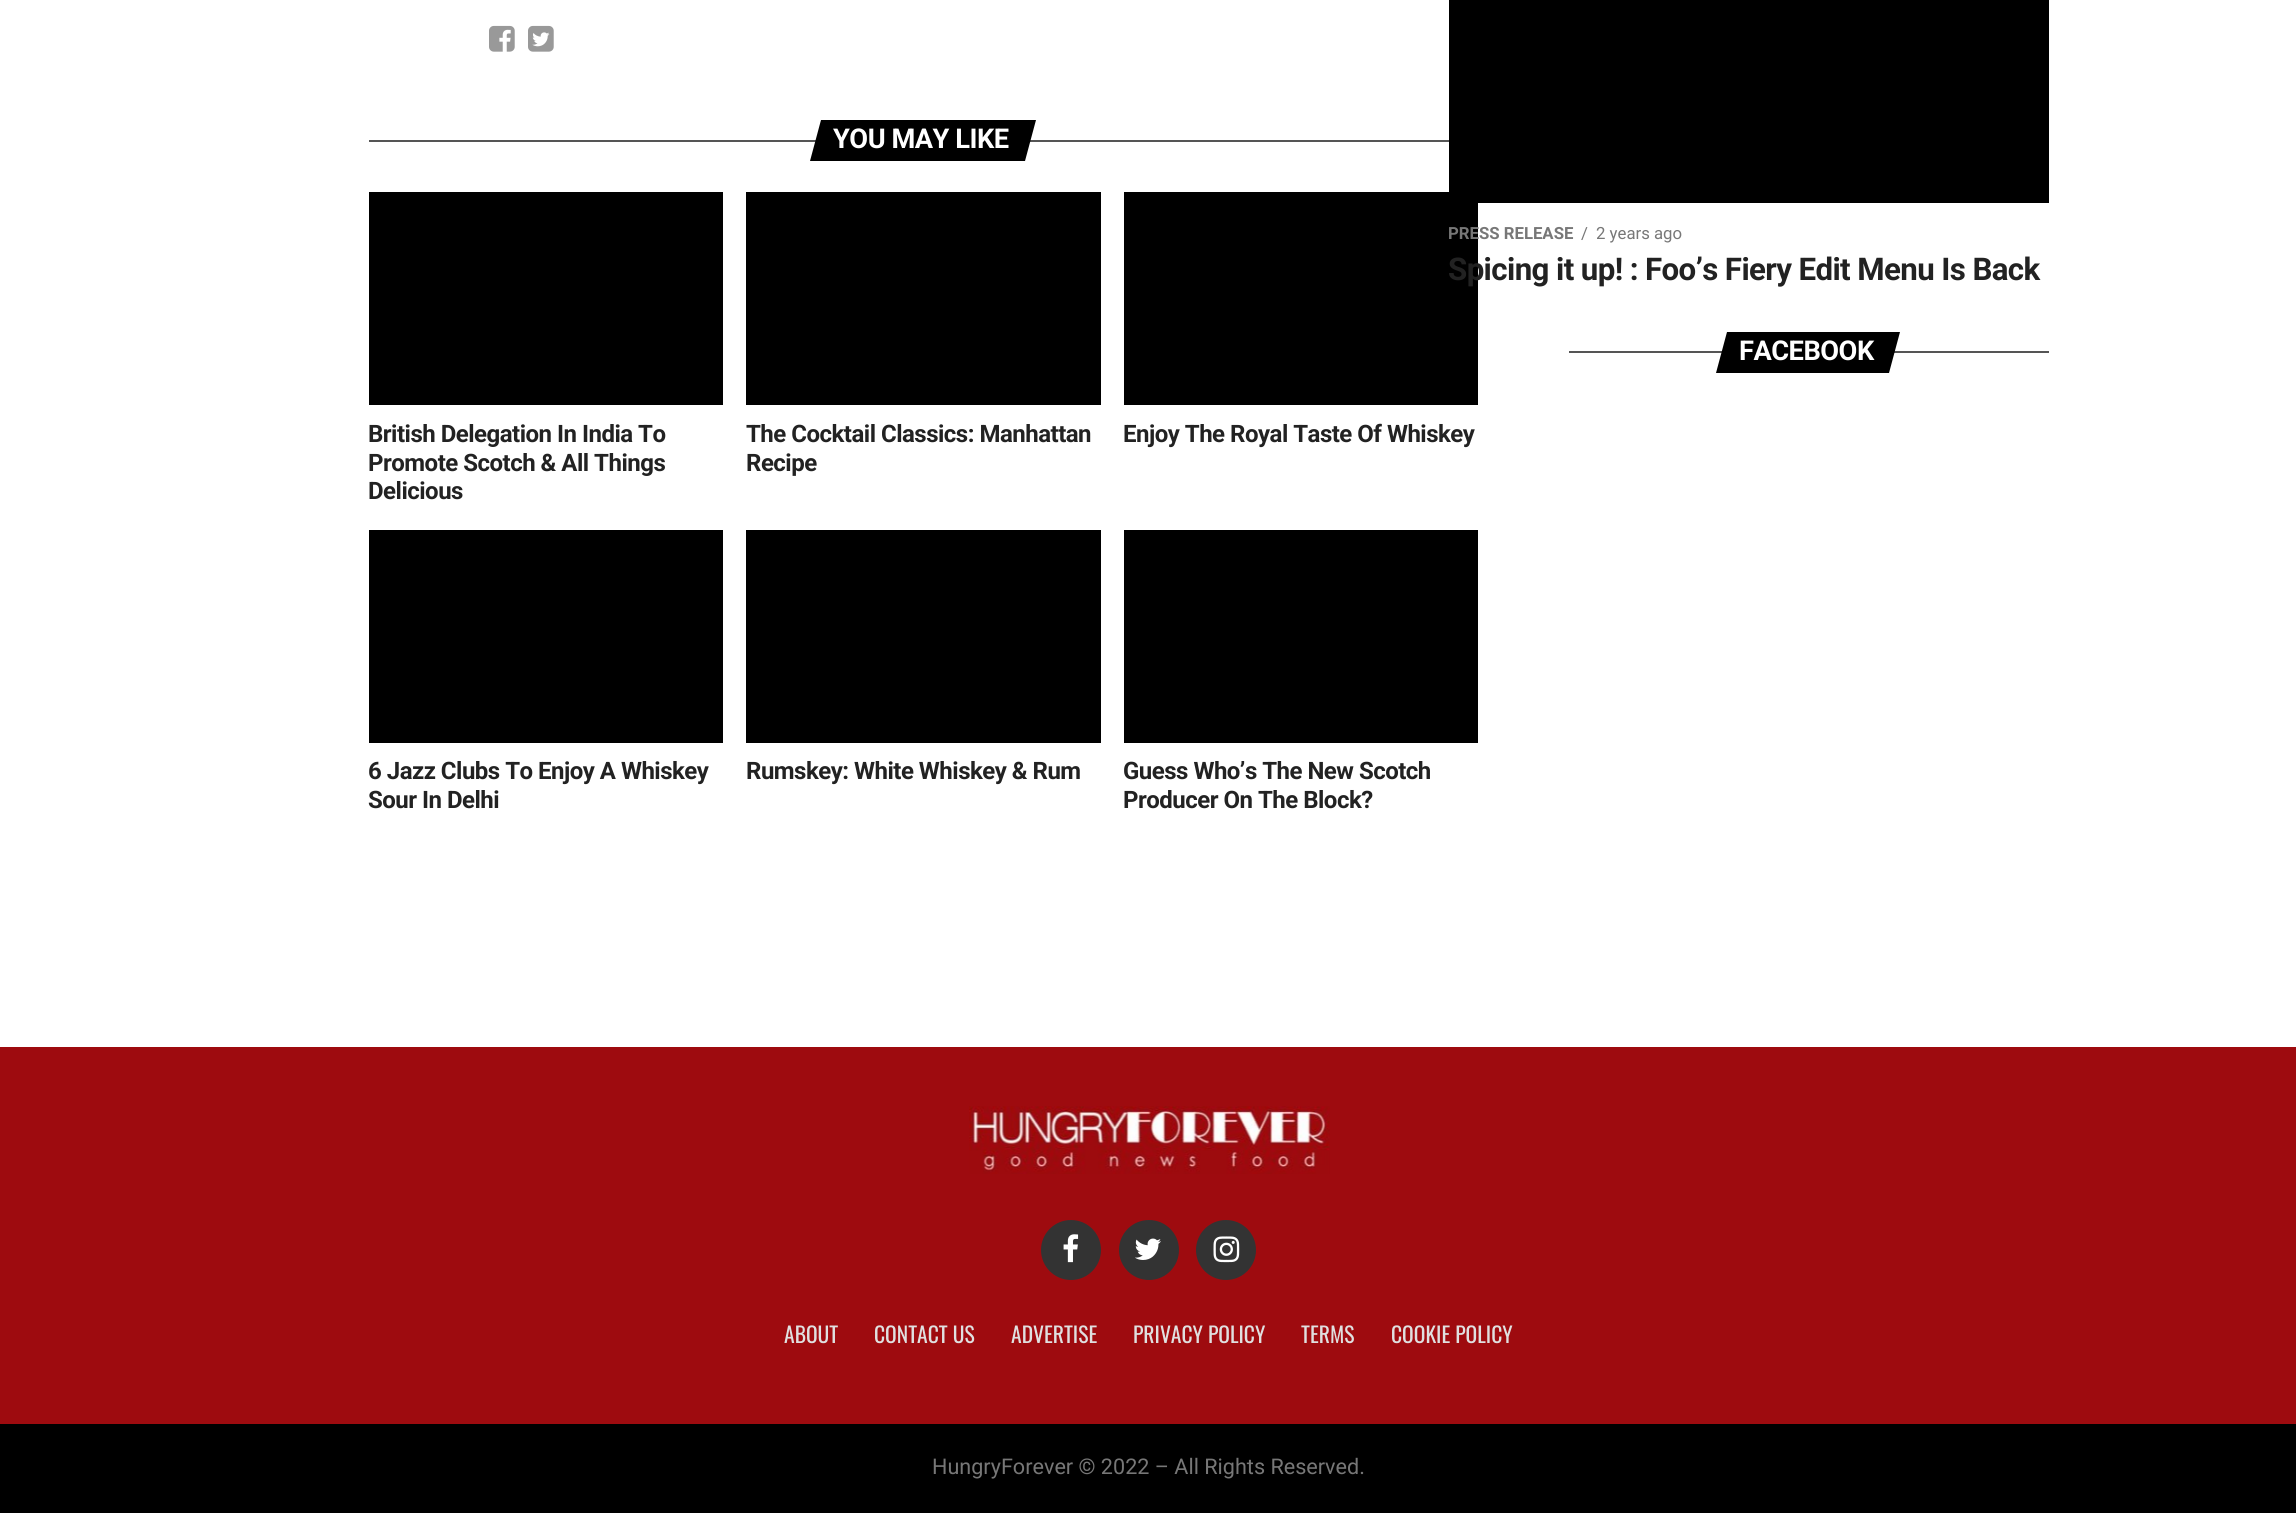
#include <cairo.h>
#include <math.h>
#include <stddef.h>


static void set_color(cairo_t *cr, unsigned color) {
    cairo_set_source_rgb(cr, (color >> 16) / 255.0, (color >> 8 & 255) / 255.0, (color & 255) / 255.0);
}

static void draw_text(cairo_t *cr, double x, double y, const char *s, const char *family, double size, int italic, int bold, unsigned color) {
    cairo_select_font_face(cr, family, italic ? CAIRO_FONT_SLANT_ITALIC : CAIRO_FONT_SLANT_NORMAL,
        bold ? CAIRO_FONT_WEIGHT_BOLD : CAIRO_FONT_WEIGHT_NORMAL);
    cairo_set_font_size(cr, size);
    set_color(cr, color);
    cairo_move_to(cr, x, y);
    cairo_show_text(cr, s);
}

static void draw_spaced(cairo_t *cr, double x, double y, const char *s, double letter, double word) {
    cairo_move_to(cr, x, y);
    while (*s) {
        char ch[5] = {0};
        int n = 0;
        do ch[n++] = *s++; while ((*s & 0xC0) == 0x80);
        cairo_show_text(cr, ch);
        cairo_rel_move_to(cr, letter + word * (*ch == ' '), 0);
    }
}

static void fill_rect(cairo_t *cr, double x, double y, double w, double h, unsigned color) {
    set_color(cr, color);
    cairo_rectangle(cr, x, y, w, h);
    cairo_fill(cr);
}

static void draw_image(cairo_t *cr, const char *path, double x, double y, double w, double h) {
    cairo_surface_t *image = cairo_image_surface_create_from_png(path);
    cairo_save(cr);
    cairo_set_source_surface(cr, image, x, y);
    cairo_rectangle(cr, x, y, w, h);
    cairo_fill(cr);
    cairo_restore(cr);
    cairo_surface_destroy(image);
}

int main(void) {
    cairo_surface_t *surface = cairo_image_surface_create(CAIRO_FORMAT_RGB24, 2296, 1513);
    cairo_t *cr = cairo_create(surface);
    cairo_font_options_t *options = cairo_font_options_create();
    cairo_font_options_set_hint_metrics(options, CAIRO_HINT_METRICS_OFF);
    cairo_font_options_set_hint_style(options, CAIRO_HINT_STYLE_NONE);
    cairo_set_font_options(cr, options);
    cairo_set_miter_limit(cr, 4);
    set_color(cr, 0xFFFFFF);
    cairo_paint(cr);
    draw_image(cr, "assets/img1.png", 489, 25, 26, 27);
    draw_image(cr, "assets/img2.png", 528, 25, 26, 27);
    fill_rect(cr, 369, 140, 1080, 2, 0x555555);
    set_color(cr, 0x000000);
    cairo_new_path(cr);
    cairo_move_to(cr, 821, 120);
    cairo_line_to(cr, 1036, 120);
    cairo_line_to(cr, 1025, 161);
    cairo_line_to(cr, 810, 161);
    cairo_close_path(cr);
    cairo_fill(cr);
    cairo_select_font_face(cr, "Roboto", CAIRO_FONT_SLANT_NORMAL, CAIRO_FONT_WEIGHT_BOLD);
    cairo_set_font_size(cr, 27.25);
    set_color(cr, 0xFFFFFF);
    draw_spaced(cr, 833, 148, "YOU MAY LIKE", -0.5, 0);
    fill_rect(cr, 369, 192, 354, 213, 0x000000);
    cairo_set_font_size(cr, 24);
    set_color(cr, 0x222222);
    draw_spaced(cr, 368, 442, "British Delegation In India To", -0.5, 0);
    draw_spaced(cr, 368, 471, "Promote Scotch & All Things", -0.5, 0);
    draw_spaced(cr, 368, 499, "Delicious", -0.5, 0);
    fill_rect(cr, 746, 192, 355, 213, 0x000000);
    set_color(cr, 0x222222);
    draw_spaced(cr, 746, 442, "The Cocktail Classics: Manhattan", -0.5, 0);
    draw_spaced(cr, 746, 471, "Recipe", -0.5, 0);
    fill_rect(cr, 1124, 192, 354, 213, 0x000000);
    set_color(cr, 0x222222);
    draw_spaced(cr, 1123, 442, "Enjoy The Royal Taste Of Whiskey", -0.5, 0);
    fill_rect(cr, 369, 530, 354, 213, 0x000000);
    set_color(cr, 0x222222);
    draw_spaced(cr, 368, 779, "6 Jazz Clubs To Enjoy A Whiskey", -0.5, 0);
    draw_spaced(cr, 368, 808, "Sour In Delhi", -0.5, 0);
    fill_rect(cr, 746, 530, 355, 213, 0x000000);
    set_color(cr, 0x222222);
    draw_spaced(cr, 746, 779, "Rumskey: White Whiskey & Rum", -0.5, 0);
    fill_rect(cr, 1124, 530, 354, 213, 0x000000);
    set_color(cr, 0x222222);
    draw_spaced(cr, 1123, 779, "Guess Who’s The New Scotch", -0.5, 0);
    draw_spaced(cr, 1123, 808, "Producer On The Block?", -0.5, 0);
    fill_rect(cr, 1449, 0, 600, 203, 0x000000);
    draw_text(cr, 1448, 239, "PRESS RELEASE", "Roboto", 16.75, 0, 1, 0x777777);
    draw_text(cr, 1581, 239, "/", "Roboto", 16.75, 0, 0, 0x777777);
    draw_text(cr, 1596, 239, "2 years ago", "Roboto", 16.75, 0, 0, 0x777777);
    cairo_select_font_face(cr, "Roboto", CAIRO_FONT_SLANT_NORMAL, CAIRO_FONT_WEIGHT_BOLD);
    cairo_set_font_size(cr, 31.25);
    set_color(cr, 0x222222);
    draw_spaced(cr, 1448, 280, "Spicing it up! : Foo’s Fiery Edit Menu Is Back", -0.6, 0);
    fill_rect(cr, 1569, 351, 480, 2, 0x555555);
    set_color(cr, 0x000000);
    cairo_new_path(cr);
    cairo_move_to(cr, 1727, 332);
    cairo_line_to(cr, 1900, 332);
    cairo_line_to(cr, 1889, 373);
    cairo_line_to(cr, 1716, 373);
    cairo_close_path(cr);
    cairo_fill(cr);
    cairo_set_font_size(cr, 27.25);
    set_color(cr, 0xFFFFFF);
    draw_spaced(cr, 1739, 360, "FACEBOOK", -0.5, 0);
    fill_rect(cr, 0, 1047, 2296, 377, 0x9E0B0F);
    draw_image(cr, "assets/img3.png", 969, 1106, 361, 68);
    set_color(cr, 0x333333);
    cairo_arc(cr, 1071, 1250, 30, 0, 2 * M_PI);
    cairo_fill(cr);
    draw_image(cr, "assets/img4.png", 1063, 1234, 16, 29);
    cairo_arc(cr, 1149, 1250, 30, 0, 2 * M_PI);
    cairo_fill(cr);
    draw_image(cr, "assets/img5.png", 1135, 1238, 26, 22);
    cairo_arc(cr, 1226, 1250, 30, 0, 2 * M_PI);
    cairo_fill(cr);
    draw_image(cr, "assets/img6.png", 1213, 1236, 27, 27);
    draw_text(cr, 784, 1343, "ABOUT", "Oswald", 21.6, 0, 0, 0xE0E0E0);
    draw_text(cr, 874, 1343, "CONTACT US", "Oswald", 21.6, 0, 0, 0xE0E0E0);
    draw_text(cr, 1011, 1343, "ADVERTISE", "Oswald", 21.6, 0, 0, 0xE0E0E0);
    draw_text(cr, 1133, 1343, "PRIVACY POLICY", "Oswald", 21.6, 0, 0, 0xE0E0E0);
    draw_text(cr, 1301, 1343, "TERMS", "Oswald", 21.6, 0, 0, 0xE0E0E0);
    draw_text(cr, 1391, 1343, "COOKIE POLICY", "Oswald", 21.6, 0, 0, 0xE0E0E0);
    fill_rect(cr, 0, 1424, 2296, 89, 0x000000);
    draw_text(cr, 932, 1474, "HungryForever © 2022 – All Rights Reserved.", "Roboto", 21.6, 0, 0, 0x777777);
    cairo_surface_write_to_png(surface, "output.png");
    cairo_font_options_destroy(options);
    cairo_destroy(cr);
    cairo_surface_destroy(surface);
    return 0;
}
